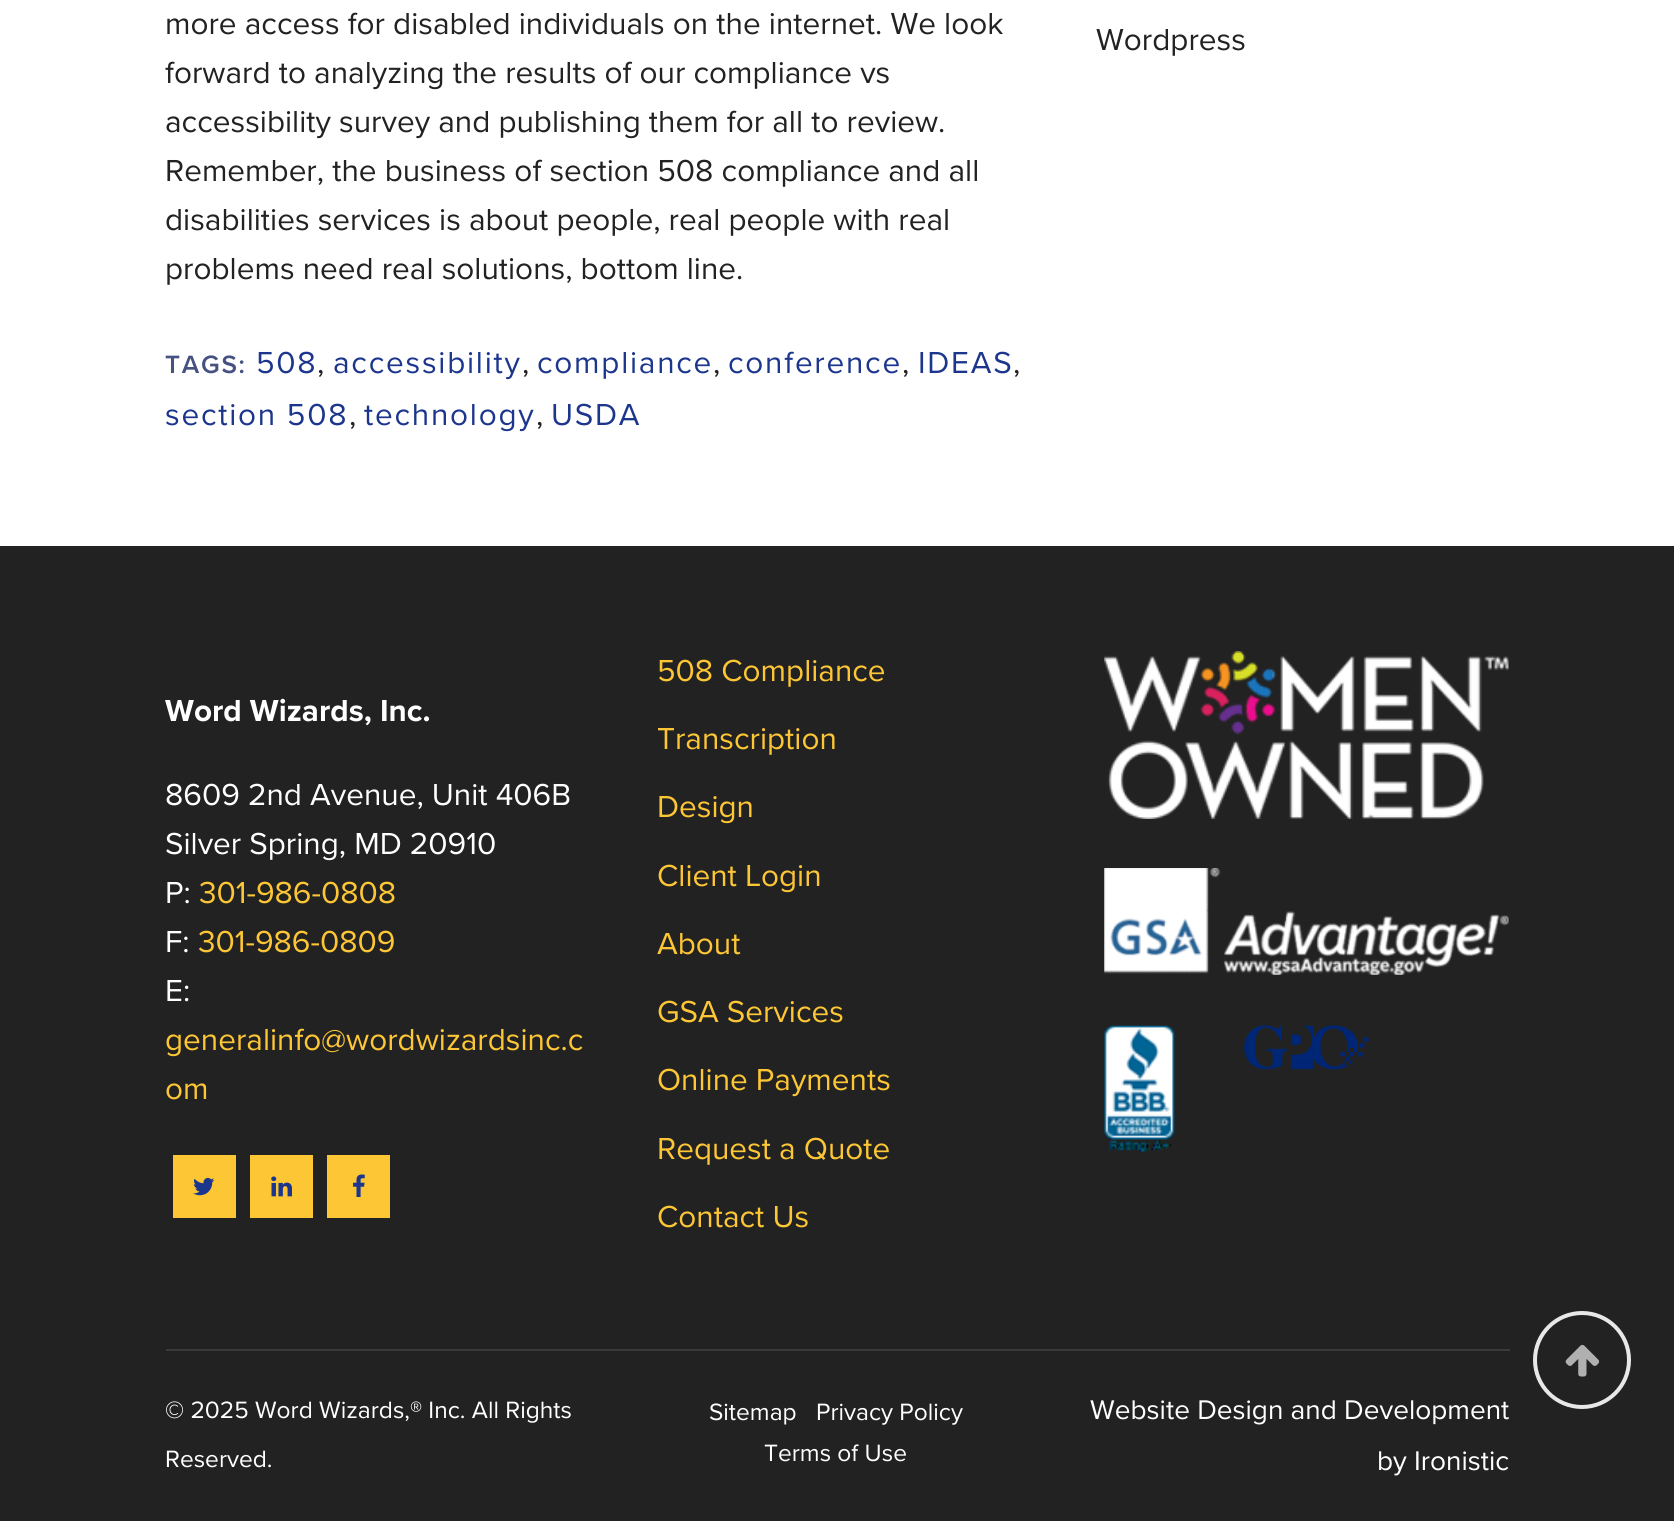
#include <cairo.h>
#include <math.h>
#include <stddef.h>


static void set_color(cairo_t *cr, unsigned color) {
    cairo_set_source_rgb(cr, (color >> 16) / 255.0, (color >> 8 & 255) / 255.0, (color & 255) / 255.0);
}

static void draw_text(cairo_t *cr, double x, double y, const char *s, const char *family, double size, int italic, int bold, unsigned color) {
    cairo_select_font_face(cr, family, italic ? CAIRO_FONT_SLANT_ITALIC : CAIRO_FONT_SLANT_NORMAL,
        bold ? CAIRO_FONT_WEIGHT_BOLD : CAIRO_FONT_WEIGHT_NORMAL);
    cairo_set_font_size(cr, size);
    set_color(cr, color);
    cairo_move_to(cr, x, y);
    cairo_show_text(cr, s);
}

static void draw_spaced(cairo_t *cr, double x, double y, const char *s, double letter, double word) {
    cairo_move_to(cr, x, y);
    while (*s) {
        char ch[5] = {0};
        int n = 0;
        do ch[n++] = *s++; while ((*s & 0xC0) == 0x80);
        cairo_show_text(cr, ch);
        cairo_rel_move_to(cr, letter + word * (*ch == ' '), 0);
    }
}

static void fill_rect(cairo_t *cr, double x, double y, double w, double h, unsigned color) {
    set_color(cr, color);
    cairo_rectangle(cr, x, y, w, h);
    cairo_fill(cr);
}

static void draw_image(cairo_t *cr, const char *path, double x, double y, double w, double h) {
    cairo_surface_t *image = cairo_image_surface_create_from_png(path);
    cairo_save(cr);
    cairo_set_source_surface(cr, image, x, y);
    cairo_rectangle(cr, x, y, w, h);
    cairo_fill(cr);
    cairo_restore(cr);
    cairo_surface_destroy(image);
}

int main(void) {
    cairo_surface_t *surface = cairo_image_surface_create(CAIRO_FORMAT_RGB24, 1674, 1521);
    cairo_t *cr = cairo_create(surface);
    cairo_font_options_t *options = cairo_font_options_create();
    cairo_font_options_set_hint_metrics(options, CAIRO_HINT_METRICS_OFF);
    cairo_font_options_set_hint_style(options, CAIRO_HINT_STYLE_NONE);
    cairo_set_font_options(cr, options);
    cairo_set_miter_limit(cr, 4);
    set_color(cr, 0xFFFFFF);
    cairo_paint(cr);
    draw_text(cr, 165, 34, "more access for disabled individuals on the internet. We look", "Proxima Nova", 31.5, 0, 0, 0x222222);
    draw_text(cr, 165, 83, "forward to analyzing the results of our compliance vs", "Proxima Nova", 31.5, 0, 0, 0x222222);
    draw_text(cr, 165, 132, "accessibility survey and publishing them for all to review.", "Proxima Nova", 31.5, 0, 0, 0x222222);
    draw_text(cr, 165, 181, "Remember, the business of section 508 compliance and all", "Proxima Nova", 31.5, 0, 0, 0x222222);
    draw_text(cr, 165, 230, "disabilities services is about people, real people with real", "Proxima Nova", 31.5, 0, 0, 0x222222);
    draw_text(cr, 165, 279, "problems need real solutions, bottom line.", "Proxima Nova", 31.5, 0, 0, 0x222222);
    cairo_select_font_face(cr, "Proxima Nova SemiBold", CAIRO_FONT_SLANT_NORMAL, CAIRO_FONT_WEIGHT_NORMAL);
    cairo_set_font_size(cr, 26);
    set_color(cr, 0x455181);
    draw_spaced(cr, 165, 373, "TAGS:", 1.75, 0);
    cairo_select_font_face(cr, "Proxima Nova", CAIRO_FONT_SLANT_NORMAL, CAIRO_FONT_WEIGHT_NORMAL);
    cairo_set_font_size(cr, 31.5);
    set_color(cr, 0x1C368D);
    draw_spaced(cr, 256, 373, "508", 1.75, 0);
    draw_text(cr, 317, 373, ",", "Proxima Nova", 31.5, 0, 0, 0x222222);
    set_color(cr, 0x1C368D);
    draw_spaced(cr, 333, 373, "accessibility", 1.75, 0);
    draw_text(cr, 522, 373, ",", "Proxima Nova", 31.5, 0, 0, 0x222222);
    set_color(cr, 0x1C368D);
    draw_spaced(cr, 537, 373, "compliance", 1.75, 0);
    draw_text(cr, 713, 373, ",", "Proxima Nova", 31.5, 0, 0, 0x222222);
    set_color(cr, 0x1C368D);
    draw_spaced(cr, 728, 373, "conference", 1.75, 0);
    draw_text(cr, 902, 373, ",", "Proxima Nova", 31.5, 0, 0, 0x222222);
    set_color(cr, 0x1C368D);
    draw_spaced(cr, 918, 373, "IDEAS", 1.75, 0);
    draw_text(cr, 1013, 373, ",", "Proxima Nova", 31.5, 0, 0, 0x222222);
    set_color(cr, 0x1C368D);
    draw_spaced(cr, 165, 425, "section 508", 1.75, 0);
    draw_text(cr, 349, 425, ",", "Proxima Nova", 31.5, 0, 0, 0x222222);
    set_color(cr, 0x1C368D);
    draw_spaced(cr, 364, 425, "technology", 1.75, 0);
    draw_text(cr, 536, 425, ",", "Proxima Nova", 31.5, 0, 0, 0x222222);
    set_color(cr, 0x1C368D);
    draw_spaced(cr, 551, 425, "USDA", 1.75, 0);
    draw_text(cr, 1096, 50, "Wordpress", "Proxima Nova", 31.5, 0, 0, 0x222222);
    fill_rect(cr, 0, 546, 1674, 975, 0x222222);
    draw_text(cr, 165, 721, "Word Wizards, Inc.", "Proxima Nova", 31.5, 0, 1, 0xFFFFFF);
    draw_text(cr, 165, 805, "8609 2nd Avenue, Unit 406B", "Proxima Nova", 31.5, 0, 0, 0xFFFFFF);
    draw_text(cr, 165, 854, "Silver Spring, MD 20910", "Proxima Nova", 31.5, 0, 0, 0xFFFFFF);
    draw_text(cr, 165, 903, "P:", "Proxima Nova", 31.5, 0, 0, 0xFFFFFF);
    draw_text(cr, 199, 903, "301-986-0808", "Proxima Nova", 31.5, 0, 0, 0xFDC635);
    draw_text(cr, 165, 952, "F:", "Proxima Nova", 31.5, 0, 0, 0xFFFFFF);
    draw_text(cr, 198, 952, "301-986-0809", "Proxima Nova", 31.5, 0, 0, 0xFDC635);
    draw_text(cr, 165, 1001, "E:", "Proxima Nova", 31.5, 0, 0, 0xFFFFFF);
    draw_text(cr, 165, 1050, "generalinfo@wordwizardsinc.c", "Proxima Nova", 31.5, 0, 0, 0xFDC635);
    draw_text(cr, 165, 1099, "om", "Proxima Nova", 31.5, 0, 0, 0xFDC635);
    fill_rect(cr, 173, 1155, 63, 63, 0xFDC635);
    draw_image(cr, "assets/img1.png", 193, 1177, 22, 19);
    fill_rect(cr, 250, 1155, 63, 63, 0xFDC635);
    draw_image(cr, "assets/img2.png", 271, 1176, 21, 21);
    fill_rect(cr, 327, 1155, 63, 63, 0xFDC635);
    draw_image(cr, "assets/img3.png", 353, 1174, 12, 23);
    draw_text(cr, 657, 681, "508 Compliance", "Proxima Nova", 31.5, 0, 0, 0xFDC635);
    draw_text(cr, 657, 749, "Transcription", "Proxima Nova", 31.5, 0, 0, 0xFDC635);
    draw_text(cr, 657, 817, "Design", "Proxima Nova", 31.5, 0, 0, 0xFDC635);
    draw_text(cr, 657, 886, "Client Login", "Proxima Nova", 31.5, 0, 0, 0xFDC635);
    draw_text(cr, 657, 954, "About", "Proxima Nova", 31.5, 0, 0, 0xFDC635);
    draw_text(cr, 657, 1022, "GSA Services", "Proxima Nova", 31.5, 0, 0, 0xFDC635);
    draw_text(cr, 657, 1090, "Online Payments", "Proxima Nova", 31.5, 0, 0, 0xFDC635);
    draw_text(cr, 657, 1159, "Request a Quote", "Proxima Nova", 31.5, 0, 0, 0xFDC635);
    draw_text(cr, 657, 1227, "Contact Us", "Proxima Nova", 31.5, 0, 0, 0xFDC635);
    draw_image(cr, "assets/img4.png", 1104, 651, 405, 168);
    draw_image(cr, "assets/img5.png", 1104, 868, 405, 107);
    draw_image(cr, "assets/img6.png", 1104, 1025, 71, 127);
    draw_image(cr, "assets/img7.png", 1244, 1025, 125, 45);
    fill_rect(cr, 166, 1349, 1344, 2, 0x3A3A3A);
    draw_text(cr, 165, 1418, "© 2025 Word Wizards,® Inc. All Rights", "Proxima Nova", 24.5, 0, 0, 0xFFFFFF);
    draw_text(cr, 165, 1467, "Reserved.", "Proxima Nova", 24.5, 0, 0, 0xFFFFFF);
    draw_text(cr, 709, 1420, "Sitemap", "Proxima Nova", 24.5, 0, 0, 0xFFFFFF);
    draw_text(cr, 816, 1420, "Privacy Policy", "Proxima Nova", 24.5, 0, 0, 0xFFFFFF);
    draw_text(cr, 764, 1461, "Terms of Use", "Proxima Nova", 24.5, 0, 0, 0xFFFFFF);
    draw_text(cr, 1090, 1419, "Website Design and Development", "Proxima Nova", 28, 0, 0, 0xFFFFFF);
    draw_text(cr, 1377, 1470, "by Ironistic", "Proxima Nova", 28, 0, 0, 0xFFFFFF);
    cairo_new_path(cr);
    cairo_arc(cr, 1582, 1360, 47, 0, 2 * M_PI);
    set_color(cr, 0xE8E8E8);
    cairo_set_line_width(cr, 4);
    cairo_stroke(cr);
    draw_image(cr, "assets/img8.png", 1565, 1344, 35, 33);
    cairo_surface_write_to_png(surface, "output.png");
    cairo_font_options_destroy(options);
    cairo_destroy(cr);
    cairo_surface_destroy(surface);
    return 0;
}
